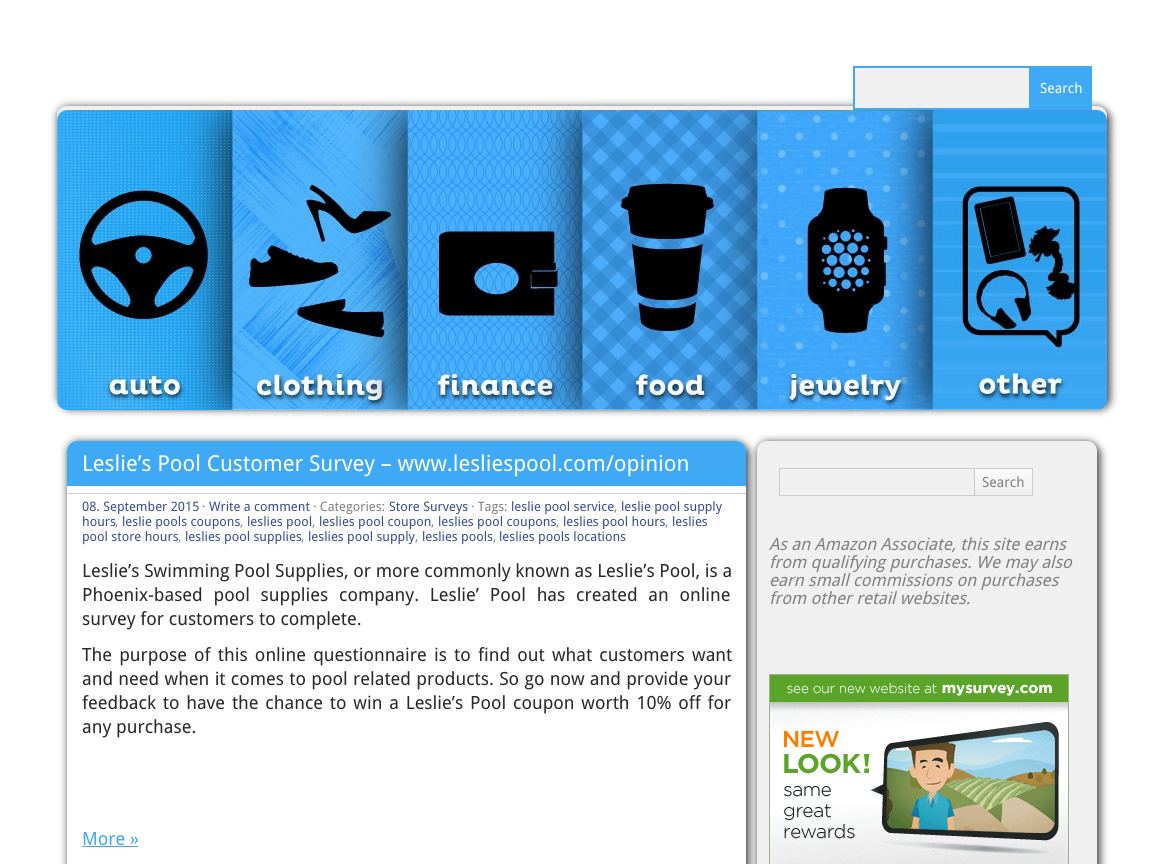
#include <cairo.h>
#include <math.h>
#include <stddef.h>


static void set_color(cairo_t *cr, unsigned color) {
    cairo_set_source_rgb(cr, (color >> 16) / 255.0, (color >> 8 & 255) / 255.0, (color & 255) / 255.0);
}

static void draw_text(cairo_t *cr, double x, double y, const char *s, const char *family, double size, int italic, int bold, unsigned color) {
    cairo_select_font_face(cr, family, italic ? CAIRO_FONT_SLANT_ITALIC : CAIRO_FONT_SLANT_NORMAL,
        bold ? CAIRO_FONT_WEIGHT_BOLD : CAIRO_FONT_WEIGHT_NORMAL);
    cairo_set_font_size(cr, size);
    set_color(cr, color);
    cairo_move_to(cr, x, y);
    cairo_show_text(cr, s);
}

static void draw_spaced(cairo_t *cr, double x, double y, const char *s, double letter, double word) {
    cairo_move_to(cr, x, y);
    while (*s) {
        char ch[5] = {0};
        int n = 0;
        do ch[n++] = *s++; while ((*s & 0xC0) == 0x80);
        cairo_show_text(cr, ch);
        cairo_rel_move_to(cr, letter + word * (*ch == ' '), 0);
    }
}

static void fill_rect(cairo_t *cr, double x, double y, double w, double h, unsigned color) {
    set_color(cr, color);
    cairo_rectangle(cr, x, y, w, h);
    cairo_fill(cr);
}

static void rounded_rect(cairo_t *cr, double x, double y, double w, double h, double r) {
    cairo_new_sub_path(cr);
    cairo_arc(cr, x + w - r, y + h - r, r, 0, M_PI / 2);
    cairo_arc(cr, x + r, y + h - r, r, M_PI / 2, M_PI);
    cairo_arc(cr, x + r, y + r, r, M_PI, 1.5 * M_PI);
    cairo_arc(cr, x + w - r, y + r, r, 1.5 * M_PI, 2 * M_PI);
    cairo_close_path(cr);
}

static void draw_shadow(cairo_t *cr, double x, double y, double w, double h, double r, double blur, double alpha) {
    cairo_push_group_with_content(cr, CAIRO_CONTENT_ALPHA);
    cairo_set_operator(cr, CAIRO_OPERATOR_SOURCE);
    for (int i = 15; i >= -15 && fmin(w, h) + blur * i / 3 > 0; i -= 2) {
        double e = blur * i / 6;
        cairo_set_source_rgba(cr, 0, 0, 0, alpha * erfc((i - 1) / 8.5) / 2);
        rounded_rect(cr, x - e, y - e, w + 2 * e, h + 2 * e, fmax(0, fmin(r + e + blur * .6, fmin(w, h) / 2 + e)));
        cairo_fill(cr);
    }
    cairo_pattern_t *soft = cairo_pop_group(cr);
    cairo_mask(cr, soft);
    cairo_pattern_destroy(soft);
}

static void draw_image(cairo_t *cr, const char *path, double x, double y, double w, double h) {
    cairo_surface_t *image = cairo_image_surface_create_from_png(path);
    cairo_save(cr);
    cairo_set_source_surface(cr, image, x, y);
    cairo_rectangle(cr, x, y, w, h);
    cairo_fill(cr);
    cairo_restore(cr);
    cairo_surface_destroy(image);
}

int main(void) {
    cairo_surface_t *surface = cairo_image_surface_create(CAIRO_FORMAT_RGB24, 1163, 864);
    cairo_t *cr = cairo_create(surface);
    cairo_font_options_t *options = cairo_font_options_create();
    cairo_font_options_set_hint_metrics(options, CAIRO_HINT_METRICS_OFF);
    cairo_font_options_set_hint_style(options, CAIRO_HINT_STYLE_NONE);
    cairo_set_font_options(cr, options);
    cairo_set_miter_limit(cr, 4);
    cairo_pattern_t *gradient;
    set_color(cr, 0xFFFFFF);
    cairo_paint(cr);
    set_color(cr, 0x000000);
    draw_shadow(cr, 61, 110, 1050, 300, 10, 4, 0.5);
    draw_shadow(cr, 57, 106, 1050, 300, 10, 4, 0.5);
    fill_rect(cr, 855, 68, 174, 38, 0xF0F0F0);
    rounded_rect(cr, 57, 106, 1050, 300, 10);
    cairo_fill(cr);
    cairo_rectangle(cr, 854, 67, 176, 42);
    set_color(cr, 0x3FA9F5);
    cairo_stroke(cr);
    fill_rect(cr, 1031, 66, 61, 44, 0x3FA9F5);
    draw_text(cr, 1040, 93, "Search", "Droid Sans", 14, 0, 0, 0xFFFFFF);
    draw_image(cr, "assets/img1.png", 57, 110, 175, 300);
    draw_image(cr, "assets/img2.png", 232, 110, 175, 300);
    draw_image(cr, "assets/img3.png", 407, 110, 175, 300);
    draw_image(cr, "assets/img4.png", 582, 110, 175, 300);
    draw_image(cr, "assets/img5.png", 757, 110, 175, 300);
    draw_image(cr, "assets/img6.png", 932, 110, 175, 300);
    cairo_save(cr);
    cairo_set_fill_rule(cr, CAIRO_FILL_RULE_EVEN_ODD);
    cairo_new_path(cr);
    cairo_move_to(cr, 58, 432);
    cairo_line_to(cr, 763, 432);
    cairo_line_to(cr, 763, 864);
    cairo_line_to(cr, 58, 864);
    cairo_close_path(cr);
    cairo_move_to(cr, 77, 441);
    cairo_line_to(cr, 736, 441);
    cairo_curve_to(cr, 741.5, 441, 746, 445.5, 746, 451);
    cairo_line_to(cr, 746, 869);
    cairo_curve_to(cr, 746, 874.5, 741.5, 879, 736, 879);
    cairo_line_to(cr, 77, 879);
    cairo_curve_to(cr, 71.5, 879, 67, 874.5, 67, 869);
    cairo_line_to(cr, 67, 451);
    cairo_curve_to(cr, 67, 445.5, 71.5, 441, 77, 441);
    cairo_close_path(cr);
    cairo_clip(cr);
    set_color(cr, 0x000000);
    draw_shadow(cr, 71, 445, 679, 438, 10, 4, 0.5);
    cairo_restore(cr);
    cairo_save(cr);
    cairo_set_fill_rule(cr, CAIRO_FILL_RULE_EVEN_ODD);
    cairo_new_path(cr);
    cairo_move_to(cr, 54, 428);
    cairo_line_to(cr, 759, 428);
    cairo_line_to(cr, 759, 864);
    cairo_line_to(cr, 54, 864);
    cairo_close_path(cr);
    cairo_move_to(cr, 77, 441);
    cairo_line_to(cr, 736, 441);
    cairo_curve_to(cr, 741.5, 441, 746, 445.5, 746, 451);
    cairo_line_to(cr, 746, 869);
    cairo_curve_to(cr, 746, 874.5, 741.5, 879, 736, 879);
    cairo_line_to(cr, 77, 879);
    cairo_curve_to(cr, 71.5, 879, 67, 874.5, 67, 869);
    cairo_line_to(cr, 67, 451);
    cairo_curve_to(cr, 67, 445.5, 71.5, 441, 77, 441);
    cairo_close_path(cr);
    cairo_clip(cr);
    set_color(cr, 0x000000);
    draw_shadow(cr, 67, 441, 679, 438, 10, 4, 0.5);
    cairo_restore(cr);
    set_color(cr, 0x3FA9F5);
    cairo_new_path(cr);
    cairo_move_to(cr, 77, 441);
    cairo_line_to(cr, 736, 441);
    cairo_curve_to(cr, 741.5, 441, 746, 445.5, 746, 451);
    cairo_line_to(cr, 746, 486);
    cairo_line_to(cr, 67, 486);
    cairo_line_to(cr, 67, 451);
    cairo_curve_to(cr, 67, 445.5, 71.5, 441, 77, 441);
    cairo_close_path(cr);
    cairo_fill(cr);
    draw_text(cr, 82, 471, "Leslie’s Pool Customer Survey – www.lesliespool.com/opinion", "Droid Sans", 22, 0, 0, 0xFFFFFF);
    fill_rect(cr, 67, 493, 679, 1, 0xCCCCCC);
    draw_text(cr, 82, 511, "08. September 2015", "Droid Sans", 13, 0, 0, 0x364D96);
    draw_text(cr, 202, 511, "·", "Droid Sans", 13, 0, 0, 0x808080);
    draw_text(cr, 209, 511, "Write a comment", "Droid Sans", 13, 0, 0, 0x364D96);
    draw_text(cr, 313, 511, "· Categories:", "Droid Sans", 13, 0, 0, 0x808080);
    draw_text(cr, 389, 511, "Store Surveys", "Droid Sans", 13, 0, 0, 0x364D96);
    draw_text(cr, 471, 511, "· Tags:", "Droid Sans", 13, 0, 0, 0x808080);
    draw_text(cr, 511, 511, "leslie pool service", "Droid Sans", 13, 0, 0, 0x364D96);
    draw_text(cr, 621, 511, "leslie pool supply", "Droid Sans", 13, 0, 0, 0x364D96);
    draw_text(cr, 614, 511, ",", "Droid Sans", 13, 0, 0, 0x808080);
    draw_text(cr, 82, 526, "hours", "Droid Sans", 13, 0, 0, 0x364D96);
    draw_text(cr, 115, 526, ",", "Droid Sans", 13, 0, 0, 0x808080);
    draw_text(cr, 122, 526, "leslie pools coupons", "Droid Sans", 13, 0, 0, 0x364D96);
    draw_text(cr, 240, 526, ",", "Droid Sans", 13, 0, 0, 0x808080);
    draw_text(cr, 247, 526, "leslies pool", "Droid Sans", 13, 0, 0, 0x364D96);
    draw_text(cr, 312, 526, ",", "Droid Sans", 13, 0, 0, 0x808080);
    draw_text(cr, 319, 526, "leslies pool coupon", "Droid Sans", 13, 0, 0, 0x364D96);
    draw_text(cr, 431, 526, ",", "Droid Sans", 13, 0, 0, 0x808080);
    draw_text(cr, 438, 526, "leslies pool coupons", "Droid Sans", 13, 0, 0, 0x364D96);
    draw_text(cr, 556, 526, ",", "Droid Sans", 13, 0, 0, 0x808080);
    draw_text(cr, 563, 526, "leslies pool hours", "Droid Sans", 13, 0, 0, 0x364D96);
    draw_text(cr, 665, 526, ",", "Droid Sans", 13, 0, 0, 0x808080);
    draw_text(cr, 672, 526, "leslies", "Droid Sans", 13, 0, 0, 0x364D96);
    draw_text(cr, 82, 541, "pool store hours", "Droid Sans", 13, 0, 0, 0x364D96);
    draw_text(cr, 178, 541, ",", "Droid Sans", 13, 0, 0, 0x808080);
    draw_text(cr, 185, 541, "leslies pool supplies", "Droid Sans", 13, 0, 0, 0x364D96);
    draw_text(cr, 301, 541, ",", "Droid Sans", 13, 0, 0, 0x808080);
    draw_text(cr, 308, 541, "leslies pool supply", "Droid Sans", 13, 0, 0, 0x364D96);
    draw_text(cr, 415, 541, ",", "Droid Sans", 13, 0, 0, 0x808080);
    draw_text(cr, 422, 541, "leslies pools", "Droid Sans", 13, 0, 0, 0x364D96);
    draw_text(cr, 493, 541, ",", "Droid Sans", 13, 0, 0, 0x808080);
    draw_text(cr, 499, 541, "leslies pools locations", "Droid Sans", 13, 0, 0, 0x364D96);
    draw_text(cr, 82, 577, "Leslie’s Swimming Pool Supplies, or more commonly known as Leslie’s Pool, is a", "Droid Sans", 18.2, 0, 0, 0x292929);
    draw_spaced(cr, 82, 601, "Phoenix-based pool supplies company. Leslie’ Pool has created an online", 0, 6);
    draw_text(cr, 82, 625, "survey for customers to complete.", "Droid Sans", 18.2, 0, 0, 0x292929);
    draw_spaced(cr, 82, 661, "The purpose of this online questionnaire is to find out what customers want", 0, 2.5);
    draw_spaced(cr, 82, 685, "and need when it comes to pool related products. So go now and provide your", 0, 0.6);
    draw_spaced(cr, 82, 709, "feedback to have the chance to win a Leslie’s Pool coupon worth 10% off for", 0, 2.1);
    draw_text(cr, 82, 733, "any purchase.", "Droid Sans", 18.2, 0, 0, 0x292929);
    draw_text(cr, 82, 845, "More »", "Droid Sans", 18.2, 0, 0, 0x3FA9F5);
    fill_rect(cr, 82, 846, 56, 1, 0x3FA9F5);
    set_color(cr, 0x000000);
    draw_shadow(cr, 761, 445, 340, 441, 10, 4, 0.5);
    draw_shadow(cr, 757, 441, 340, 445, 10, 4, 0.5);
    set_color(cr, 0xF0F0F0);
    rounded_rect(cr, 757, 441, 340, 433, 10);
    cairo_fill(cr);
    fill_rect(cr, 779, 468, 195, 1, 0xCCCCCC);
    fill_rect(cr, 779, 495, 195, 1, 0xCCCCCC);
    fill_rect(cr, 779, 468, 1, 28, 0xCCCCCC);
    gradient = cairo_pattern_create_linear(1004, 469, 1004, 495);
    cairo_pattern_add_color_stop_rgba(gradient, 0, 0.98, 0.98, 0.98, 1);
    cairo_pattern_add_color_stop_rgba(gradient, 1, 0.941, 0.941, 0.941, 1);
    cairo_set_source(cr, gradient);
    cairo_pattern_destroy(gradient);
    cairo_rectangle(cr, 975, 469, 57, 20);
    cairo_fill(cr);
    cairo_rectangle(cr, 974.5, 468.5, 58, 27);
    set_color(cr, 0xCCCCCC);
    cairo_set_line_width(cr, 1);
    cairo_stroke(cr);
    draw_text(cr, 982, 487, "Search", "Droid Sans", 14, 0, 0, 0x808080);
    draw_text(cr, 769, 550, "As an Amazon Associate, this site earns", "Droid Sans", 16.9, 1, 0, 0x808080);
    draw_text(cr, 769, 568, "from qualifying purchases. We may also", "Droid Sans", 16.9, 1, 0, 0x808080);
    draw_text(cr, 769, 586, "earn small commissions on purchases", "Droid Sans", 16.9, 1, 0, 0x808080);
    draw_text(cr, 769, 604, "from other retail websites.", "Droid Sans", 16.9, 1, 0, 0x808080);
    draw_image(cr, "assets/img7.png", 769, 674, 300, 190);
    cairo_surface_write_to_png(surface, "output.png");
    cairo_font_options_destroy(options);
    cairo_destroy(cr);
    cairo_surface_destroy(surface);
    return 0;
}
